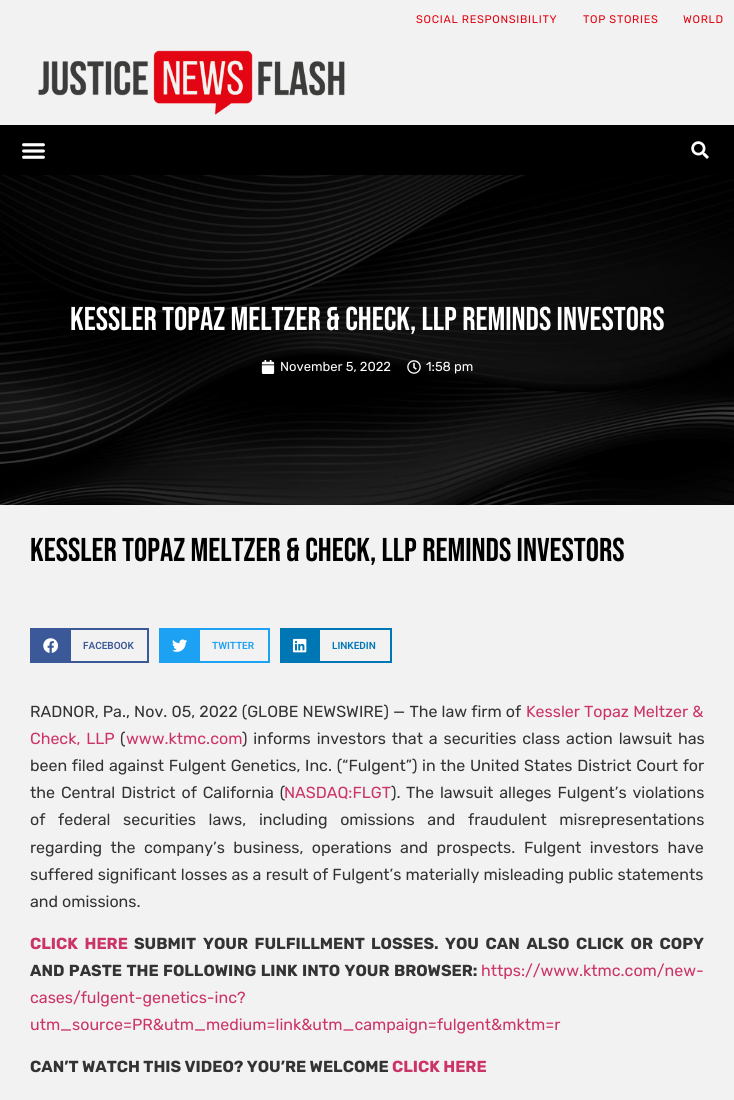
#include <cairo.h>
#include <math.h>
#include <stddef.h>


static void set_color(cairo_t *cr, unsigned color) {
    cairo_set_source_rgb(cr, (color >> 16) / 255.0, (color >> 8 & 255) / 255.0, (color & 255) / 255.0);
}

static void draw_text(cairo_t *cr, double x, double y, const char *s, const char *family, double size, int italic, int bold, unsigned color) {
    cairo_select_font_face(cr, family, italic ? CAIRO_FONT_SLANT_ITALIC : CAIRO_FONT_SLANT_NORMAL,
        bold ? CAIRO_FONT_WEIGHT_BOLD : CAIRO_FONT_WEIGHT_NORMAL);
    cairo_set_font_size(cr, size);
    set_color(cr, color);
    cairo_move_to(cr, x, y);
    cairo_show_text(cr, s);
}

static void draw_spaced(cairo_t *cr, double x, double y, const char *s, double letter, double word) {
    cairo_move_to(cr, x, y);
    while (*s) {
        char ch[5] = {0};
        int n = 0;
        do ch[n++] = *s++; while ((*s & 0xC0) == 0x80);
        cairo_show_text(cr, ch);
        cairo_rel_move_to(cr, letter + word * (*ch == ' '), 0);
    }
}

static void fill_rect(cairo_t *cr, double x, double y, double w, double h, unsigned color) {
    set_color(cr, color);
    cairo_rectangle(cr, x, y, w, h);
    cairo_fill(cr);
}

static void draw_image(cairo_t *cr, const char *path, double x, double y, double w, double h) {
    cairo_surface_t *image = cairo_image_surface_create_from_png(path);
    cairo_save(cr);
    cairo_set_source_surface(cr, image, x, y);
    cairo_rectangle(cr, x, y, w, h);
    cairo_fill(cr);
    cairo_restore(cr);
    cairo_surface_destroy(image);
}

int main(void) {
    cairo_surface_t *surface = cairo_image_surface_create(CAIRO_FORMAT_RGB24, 734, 1100);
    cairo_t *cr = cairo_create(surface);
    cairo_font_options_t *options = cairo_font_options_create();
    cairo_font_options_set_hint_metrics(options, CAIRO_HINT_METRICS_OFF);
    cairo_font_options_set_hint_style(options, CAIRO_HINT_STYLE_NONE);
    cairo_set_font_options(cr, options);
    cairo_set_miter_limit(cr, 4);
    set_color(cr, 0xF2F2F2);
    cairo_paint(cr);
    cairo_select_font_face(cr, "Rubik", CAIRO_FONT_SLANT_NORMAL, CAIRO_FONT_WEIGHT_NORMAL);
    cairo_set_font_size(cr, 11);
    set_color(cr, 0xE30513);
    draw_spaced(cr, 416, 23, "SOCIAL RESPONSIBILITY", 0.7, 0);
    draw_spaced(cr, 583, 23, "TOP STORIES", 0.7, 0);
    draw_spaced(cr, 683, 23, "WORLD", 0.7, 0);
    draw_image(cr, "assets/img1.png", 38, 50, 307, 65);
    fill_rect(cr, 0, 125, 734, 50, 0x000000);
    draw_image(cr, "assets/img2.png", 22, 143, 23, 16);
    draw_image(cr, "assets/img3.png", 691, 141, 18, 18);
    draw_image(cr, "assets/img4.png", 0, 175, 734, 330);
    draw_text(cr, 70, 330, "Kessler Topaz Meltzer & Check, LLP reminds investors", "Bebas Neue", 33, 0, 0, 0xFFFFFF);
    draw_image(cr, "assets/img5.png", 261, 360, 14, 14);
    draw_text(cr, 280, 371, "November 5, 2022", "Rubik", 13, 0, 0, 0xFFFFFF);
    draw_image(cr, "assets/img6.png", 407, 360, 14, 14);
    draw_text(cr, 426, 371, "1:58 pm", "Rubik", 13, 0, 0, 0xFFFFFF);
    draw_text(cr, 30, 561, "Kessler Topaz Meltzer & Check, LLP reminds investors", "Bebas Neue", 33, 0, 0, 0x000000);
    cairo_rectangle(cr, 31, 629, 117, 33);
    set_color(cr, 0x3B5998);
    cairo_stroke(cr);
    fill_rect(cr, 32, 630, 39, 31, 0x3B5998);
    draw_image(cr, "assets/img7.png", 43, 638, 15, 15);
    draw_text(cr, 83, 649, "FACEBOOK", "Roboto SemiBold", 10, 0, 0, 0x3B5998);
    cairo_rectangle(cr, 160, 629, 109, 33);
    set_color(cr, 0x1DA1F2);
    cairo_stroke(cr);
    fill_rect(cr, 161, 630, 39, 31, 0x1DA1F2);
    draw_image(cr, "assets/img8.png", 172, 639, 15, 13);
    draw_text(cr, 212, 649, "TWITTER", "Roboto SemiBold", 10, 0, 0, 0x1DA1F2);
    cairo_rectangle(cr, 281, 629, 110, 33);
    set_color(cr, 0x0077B5);
    cairo_stroke(cr);
    fill_rect(cr, 282, 630, 38, 31, 0x0077B5);
    draw_image(cr, "assets/img9.png", 292, 638, 15, 15);
    draw_text(cr, 332, 649, "LINKEDIN", "Roboto SemiBold", 10, 0, 0, 0x0077B5);
    cairo_select_font_face(cr, "Rubik", CAIRO_FONT_SLANT_NORMAL, CAIRO_FONT_WEIGHT_NORMAL);
    cairo_set_font_size(cr, 16);
    set_color(cr, 0x333333);
    draw_spaced(cr, 30, 717, "RADNOR, Pa., Nov. 05, 2022 (GLOBE NEWSWIRE) — The law firm of", 0, 0.25);
    set_color(cr, 0xCC3366);
    draw_spaced(cr, 526, 717, "Kessler Topaz Meltzer &", 0, 0.25);
    draw_spaced(cr, 30, 744, "Check, LLP", 0, 2);
    draw_text(cr, 120, 744, "(", "Rubik", 16, 0, 0, 0x333333);
    draw_text(cr, 126, 744, "www.ktmc.com", "Rubik", 16, 0, 0, 0xCC3366);
    set_color(cr, 0x333333);
    draw_spaced(cr, 242, 744, ") informs investors that a securities class action lawsuit has", 0, 2);
    draw_spaced(cr, 30, 771, "been filed against Fulgent Genetics, Inc. (“Fulgent”) in the United States District Court for", 0, 0.75);
    draw_spaced(cr, 30, 798, "the Central District of California (", 0, 2);
    draw_text(cr, 284, 798, "NASDAQ:FLGT", "Rubik", 16, 0, 0, 0xCC3366);
    draw_text(cr, 391, 798, ").", "Rubik", 16, 0, 0, 0x333333);
    draw_spaced(cr, 406, 798, "The lawsuit alleges Fulgent’s violations", 0, 2);
    draw_spaced(cr, 30, 825, "of federal securities laws, including omissions and fraudulent misrepresentations", 0, 8.75);
    draw_spaced(cr, 30, 853, "regarding the company’s business, operations and prospects.", 0, 4.5);
    draw_spaced(cr, 524, 853, "Fulgent investors have", 0, 4.5);
    draw_spaced(cr, 30, 880, "suffered significant losses as a result of Fulgent’s materially misleading public statements", 0, 0.25);
    draw_text(cr, 30, 907, "and omissions.", "Rubik", 16, 0, 0, 0x333333);
    cairo_select_font_face(cr, "Rubik", CAIRO_FONT_SLANT_NORMAL, CAIRO_FONT_WEIGHT_BOLD);
    set_color(cr, 0xCC3366);
    draw_spaced(cr, 30, 949, "CLICK HERE", 0, 3.25);
    draw_text(cr, 134, 949, "SUBMIT", "Rubik", 16, 0, 1, 0x333333);
    draw_spaced(cr, 203, 949, "YOUR FULFILLMENT", 0, 3.25);
    draw_text(cr, 371, 949, "LOSSES.", "Rubik", 16, 0, 1, 0x333333);
    draw_spaced(cr, 445, 949, "YOU CAN ALSO CLICK OR COPY", 0, 3.25);
    draw_spaced(cr, 30, 976, "AND PASTE THE FOLLOWING LINK INTO YOUR BROWSER:", 0, 1);
    draw_text(cr, 481, 976, "https://www.ktmc.com/new-", "Rubik", 16, 0, 0, 0xCC3366);
    draw_text(cr, 30, 1003, "cases/fulgent-genetics-inc?", "Rubik", 16, 0, 0, 0xCC3366);
    draw_text(cr, 30, 1030, "utm_source=PR&utm_medium=link&utm_campaign=fulgent&mktm=r", "Rubik", 16, 0, 0, 0xCC3366);
    draw_text(cr, 30, 1072, "CAN’T WATCH THIS VIDEO? YOU’RE WELCOME", "Rubik", 16, 0, 1, 0x333333);
    draw_text(cr, 392, 1072, "CLICK HERE", "Rubik", 16, 0, 1, 0xCC3366);
    cairo_surface_write_to_png(surface, "output.png");
    cairo_font_options_destroy(options);
    cairo_destroy(cr);
    cairo_surface_destroy(surface);
    return 0;
}
